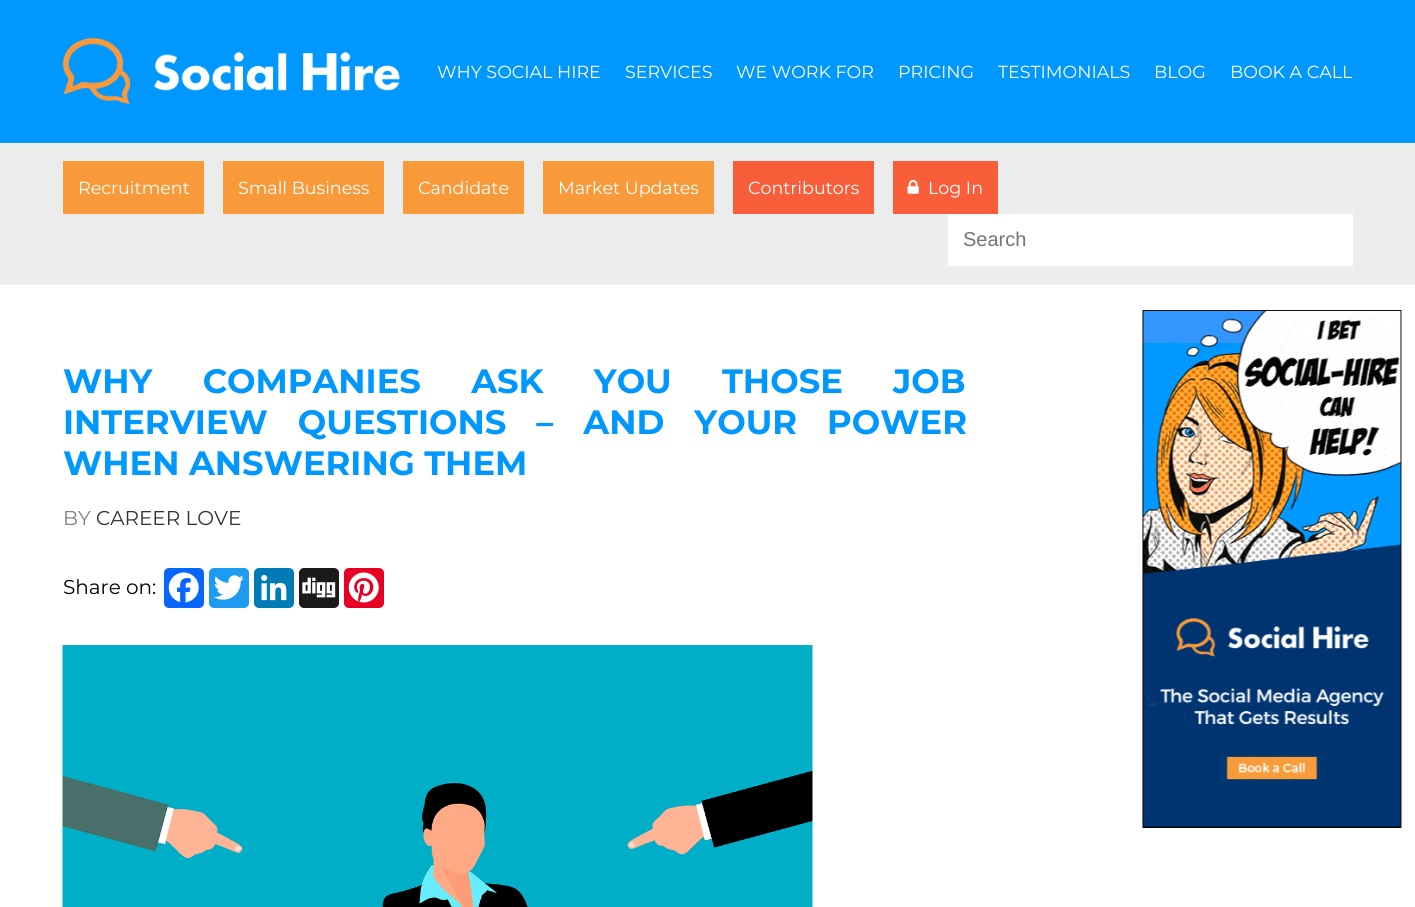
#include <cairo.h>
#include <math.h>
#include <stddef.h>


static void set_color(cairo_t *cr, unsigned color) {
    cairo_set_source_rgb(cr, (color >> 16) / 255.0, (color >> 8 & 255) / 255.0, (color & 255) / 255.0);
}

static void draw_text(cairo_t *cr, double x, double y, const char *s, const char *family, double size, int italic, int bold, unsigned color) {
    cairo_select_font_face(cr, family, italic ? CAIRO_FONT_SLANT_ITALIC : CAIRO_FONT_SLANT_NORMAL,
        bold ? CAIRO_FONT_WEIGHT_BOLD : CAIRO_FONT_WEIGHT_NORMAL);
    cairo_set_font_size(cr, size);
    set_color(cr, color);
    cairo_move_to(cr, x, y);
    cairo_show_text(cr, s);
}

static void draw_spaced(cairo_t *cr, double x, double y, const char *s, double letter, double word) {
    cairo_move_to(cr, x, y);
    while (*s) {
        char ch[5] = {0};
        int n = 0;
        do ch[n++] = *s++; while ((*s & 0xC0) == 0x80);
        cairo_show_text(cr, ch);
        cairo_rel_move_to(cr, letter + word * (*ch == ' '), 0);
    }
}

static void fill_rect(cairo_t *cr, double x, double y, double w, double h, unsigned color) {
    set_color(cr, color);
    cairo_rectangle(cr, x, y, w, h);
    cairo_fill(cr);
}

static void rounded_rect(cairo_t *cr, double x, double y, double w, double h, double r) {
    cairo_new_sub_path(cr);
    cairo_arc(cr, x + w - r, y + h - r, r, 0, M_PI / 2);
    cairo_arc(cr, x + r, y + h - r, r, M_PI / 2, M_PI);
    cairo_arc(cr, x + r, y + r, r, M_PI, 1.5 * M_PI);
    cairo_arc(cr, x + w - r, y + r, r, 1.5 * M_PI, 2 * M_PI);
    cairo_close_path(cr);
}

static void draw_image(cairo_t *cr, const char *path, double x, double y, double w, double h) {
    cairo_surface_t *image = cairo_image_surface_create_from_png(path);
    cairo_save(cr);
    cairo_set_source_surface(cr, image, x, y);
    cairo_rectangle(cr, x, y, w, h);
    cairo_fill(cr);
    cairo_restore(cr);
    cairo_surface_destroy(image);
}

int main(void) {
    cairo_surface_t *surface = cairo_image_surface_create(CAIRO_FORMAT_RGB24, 1415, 907);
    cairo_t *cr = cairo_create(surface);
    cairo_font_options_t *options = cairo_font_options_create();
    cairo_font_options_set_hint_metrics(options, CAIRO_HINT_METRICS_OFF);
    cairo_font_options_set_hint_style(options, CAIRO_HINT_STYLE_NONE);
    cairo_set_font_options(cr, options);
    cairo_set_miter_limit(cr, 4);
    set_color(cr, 0xFFFFFF);
    cairo_paint(cr);
    fill_rect(cr, 0, 0, 1415, 143, 0x0097FF);
    draw_image(cr, "assets/img1.png", 62, 37, 338, 68);
    draw_text(cr, 437, 78, "WHY SOCIAL HIRE", "Montserrat", 17.5, 0, 0, 0xFFFFFF);
    draw_text(cr, 625, 78, "SERVICES", "Montserrat", 17.5, 0, 0, 0xFFFFFF);
    draw_text(cr, 736, 78, "WE WORK FOR", "Montserrat", 17.5, 0, 0, 0xFFFFFF);
    draw_text(cr, 898, 78, "PRICING", "Montserrat", 17.5, 0, 0, 0xFFFFFF);
    draw_text(cr, 998, 78, "TESTIMONIALS", "Montserrat", 17.5, 0, 0, 0xFFFFFF);
    draw_text(cr, 1154, 78, "BLOG", "Montserrat", 17.5, 0, 0, 0xFFFFFF);
    draw_text(cr, 1230, 78, "BOOK A CALL", "Montserrat", 17.5, 0, 0, 0xFFFFFF);
    fill_rect(cr, 0, 143, 1415, 142, 0xECECEC);
    fill_rect(cr, 63, 161, 141, 53, 0xF89A3A);
    draw_text(cr, 78, 194, "Recruitment", "Montserrat", 17.5, 0, 0, 0xFFFFFF);
    fill_rect(cr, 223, 161, 161, 53, 0xF89A3A);
    draw_text(cr, 238, 194, "Small Business", "Montserrat", 17.5, 0, 0, 0xFFFFFF);
    fill_rect(cr, 403, 161, 121, 53, 0xF89A3A);
    draw_text(cr, 418, 194, "Candidate", "Montserrat", 17.5, 0, 0, 0xFFFFFF);
    fill_rect(cr, 543, 161, 171, 53, 0xF89A3A);
    draw_text(cr, 558, 194, "Market Updates", "Montserrat", 17.5, 0, 0, 0xFFFFFF);
    fill_rect(cr, 733, 161, 141, 53, 0xF85E3A);
    draw_text(cr, 748, 194, "Contributors", "Montserrat", 17.5, 0, 0, 0xFFFFFF);
    fill_rect(cr, 893, 161, 105, 53, 0xF85E3A);
    draw_image(cr, "assets/img2.png", 907, 180, 12, 14);
    draw_text(cr, 928, 194, "Log In", "Montserrat", 17.5, 0, 0, 0xFFFFFF);
    fill_rect(cr, 948, 214, 405, 52, 0xFFFFFF);
    draw_text(cr, 963, 246, "Search", "Liberation Sans", 20, 0, 0, 0x757575);
    cairo_select_font_face(cr, "Montserrat", CAIRO_FONT_SLANT_NORMAL, CAIRO_FONT_WEIGHT_BOLD);
    cairo_set_font_size(cr, 33.75);
    set_color(cr, 0x0097FF);
    draw_spaced(cr, 63, 393, "WHY COMPANIES ASK YOU THOSE JOB", 0, 40.75);
    draw_spaced(cr, 63, 434, "INTERVIEW QUESTIONS – AND YOUR POWER", 0, 20.5);
    draw_text(cr, 63, 475, "WHEN ANSWERING THEM", "Montserrat", 33.75, 0, 1, 0x0097FF);
    draw_text(cr, 63, 525, "BY", "Montserrat", 20, 0, 0, 0x818181);
    draw_text(cr, 96, 525, "CAREER LOVE", "Montserrat", 20, 0, 0, 0x333333);
    draw_text(cr, 63, 594, "Share on:", "Montserrat", 20, 0, 0, 0x000000);
    set_color(cr, 0x0866FF);
    rounded_rect(cr, 164, 568, 40, 40, 5);
    cairo_fill(cr);
    draw_image(cr, "assets/img3.png", 168, 572, 31, 31);
    set_color(cr, 0x1D9BF0);
    rounded_rect(cr, 209, 568, 40, 40, 5);
    cairo_fill(cr);
    draw_image(cr, "assets/img4.png", 214, 575, 30, 25);
    set_color(cr, 0x007BB5);
    rounded_rect(cr, 254, 568, 40, 40, 5);
    cairo_fill(cr);
    draw_image(cr, "assets/img5.png", 261, 574, 26, 27);
    set_color(cr, 0x1A1A1A);
    rounded_rect(cr, 299, 568, 40, 40, 5);
    cairo_fill(cr);
    draw_image(cr, "assets/img6.png", 302, 577, 34, 21);
    set_color(cr, 0xE60023);
    rounded_rect(cr, 344, 568, 40, 40, 5);
    cairo_fill(cr);
    draw_image(cr, "assets/img7.png", 348, 572, 31, 31);
    draw_image(cr, "assets/img8.png", 62, 645, 751, 262);
    draw_image(cr, "assets/img9.png", 1142, 310, 260, 518);
    cairo_surface_write_to_png(surface, "output.png");
    cairo_font_options_destroy(options);
    cairo_destroy(cr);
    cairo_surface_destroy(surface);
    return 0;
}
